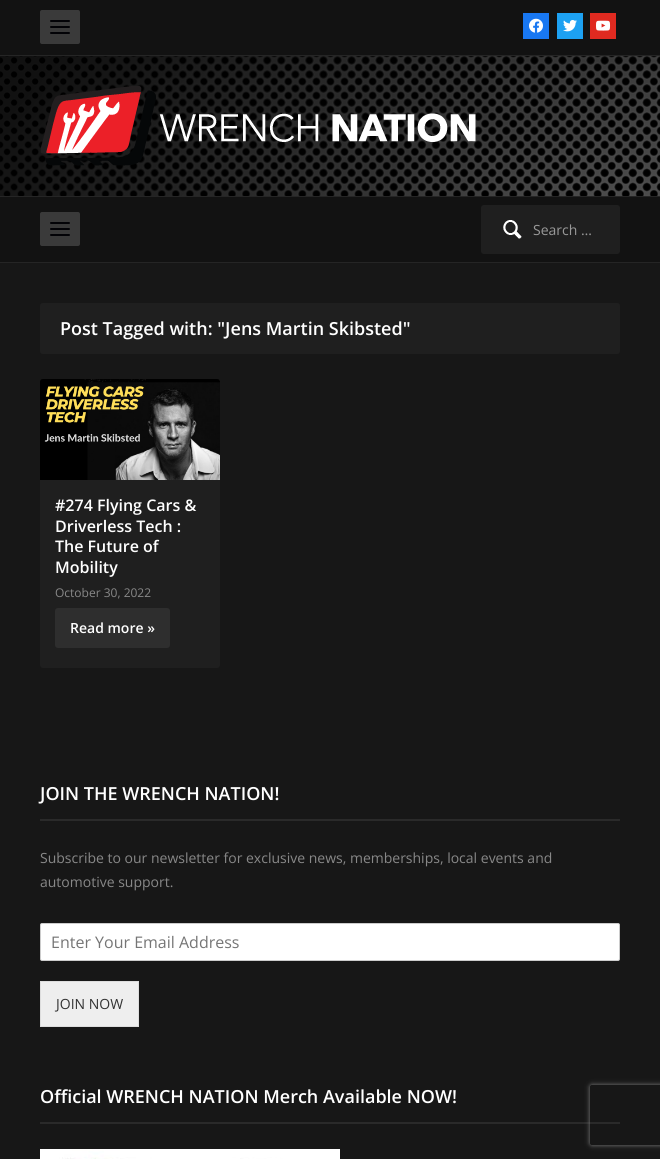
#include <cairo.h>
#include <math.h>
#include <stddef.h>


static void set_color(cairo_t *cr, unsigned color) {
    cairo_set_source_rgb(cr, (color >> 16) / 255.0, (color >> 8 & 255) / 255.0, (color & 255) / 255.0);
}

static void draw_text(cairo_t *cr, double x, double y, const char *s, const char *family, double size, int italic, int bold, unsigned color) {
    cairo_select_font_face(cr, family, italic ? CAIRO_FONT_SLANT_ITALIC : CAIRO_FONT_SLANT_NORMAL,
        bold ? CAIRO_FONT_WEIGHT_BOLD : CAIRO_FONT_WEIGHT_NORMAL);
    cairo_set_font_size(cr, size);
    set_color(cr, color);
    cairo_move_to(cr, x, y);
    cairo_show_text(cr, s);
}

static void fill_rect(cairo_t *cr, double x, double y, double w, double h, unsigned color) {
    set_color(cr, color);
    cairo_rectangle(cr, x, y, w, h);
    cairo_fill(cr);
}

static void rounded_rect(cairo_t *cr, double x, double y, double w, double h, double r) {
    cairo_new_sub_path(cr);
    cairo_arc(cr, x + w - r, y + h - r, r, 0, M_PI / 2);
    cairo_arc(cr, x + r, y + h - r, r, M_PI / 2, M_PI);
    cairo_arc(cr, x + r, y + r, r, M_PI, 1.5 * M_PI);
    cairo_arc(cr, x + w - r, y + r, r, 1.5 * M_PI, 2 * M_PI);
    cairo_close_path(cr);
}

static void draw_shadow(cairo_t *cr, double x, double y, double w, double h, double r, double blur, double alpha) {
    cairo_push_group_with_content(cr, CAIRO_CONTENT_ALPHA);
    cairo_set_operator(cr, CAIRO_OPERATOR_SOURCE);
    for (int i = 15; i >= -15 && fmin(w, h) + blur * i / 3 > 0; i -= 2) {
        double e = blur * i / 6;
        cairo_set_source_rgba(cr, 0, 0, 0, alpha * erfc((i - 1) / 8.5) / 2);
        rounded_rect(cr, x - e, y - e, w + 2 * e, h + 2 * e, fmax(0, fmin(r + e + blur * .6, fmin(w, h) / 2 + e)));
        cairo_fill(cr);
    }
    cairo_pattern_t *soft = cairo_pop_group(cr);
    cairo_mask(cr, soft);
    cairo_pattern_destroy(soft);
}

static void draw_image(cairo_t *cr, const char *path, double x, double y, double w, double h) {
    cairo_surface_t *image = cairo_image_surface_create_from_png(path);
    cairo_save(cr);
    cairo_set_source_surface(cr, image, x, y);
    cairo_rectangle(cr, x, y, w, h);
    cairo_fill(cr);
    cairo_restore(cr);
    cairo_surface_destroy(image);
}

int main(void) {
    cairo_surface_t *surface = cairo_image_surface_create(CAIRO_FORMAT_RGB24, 660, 1159);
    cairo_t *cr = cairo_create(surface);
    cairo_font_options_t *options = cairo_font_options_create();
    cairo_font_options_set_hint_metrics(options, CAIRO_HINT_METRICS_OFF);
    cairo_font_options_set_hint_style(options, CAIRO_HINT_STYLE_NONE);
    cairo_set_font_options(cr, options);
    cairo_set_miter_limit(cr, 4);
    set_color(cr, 0x171717);
    cairo_paint(cr);
    draw_image(cr, "assets/img1.png", 0, 56, 660, 140);
    fill_rect(cr, 0, 0, 660, 55, 0x121212);
    fill_rect(cr, 0, 55, 660, 1, 0x252525);
    set_color(cr, 0x3A3A3A);
    rounded_rect(cr, 40, 10, 40, 34, 2);
    cairo_fill(cr);
    set_color(cr, 0x020206);
    rounded_rect(cr, 50, 20, 20, 2, 1);
    cairo_fill(cr);
    rounded_rect(cr, 50, 26, 20, 2, 1);
    cairo_fill(cr);
    rounded_rect(cr, 50, 32, 20, 2, 1);
    cairo_fill(cr);
    fill_rect(cr, 523, 13, 26, 26, 0x1877F2);
    draw_image(cr, "assets/img2.png", 529, 18, 14, 15);
    fill_rect(cr, 557, 13, 26, 26, 0x1DA1F2);
    draw_image(cr, "assets/img3.png", 563, 20, 14, 12);
    fill_rect(cr, 590, 13, 26, 26, 0xE02A20);
    draw_image(cr, "assets/img4.png", 596, 20, 15, 11);
    draw_image(cr, "assets/img5.png", 40, 86, 436, 80);
    fill_rect(cr, 0, 197, 660, 65, 0x121212);
    fill_rect(cr, 0, 196, 660, 1, 0x252525);
    fill_rect(cr, 0, 262, 660, 1, 0x252525);
    set_color(cr, 0x3A3A3A);
    rounded_rect(cr, 40, 212, 40, 34, 2);
    cairo_fill(cr);
    set_color(cr, 0x020206);
    rounded_rect(cr, 50, 222, 20, 2, 1);
    cairo_fill(cr);
    rounded_rect(cr, 50, 228, 20, 2, 1);
    cairo_fill(cr);
    rounded_rect(cr, 50, 234, 20, 2, 1);
    cairo_fill(cr);
    set_color(cr, 0x1F1F1F);
    rounded_rect(cr, 481, 205, 139, 49, 3);
    cairo_fill(cr);
    draw_image(cr, "assets/img6.png", 503, 220, 19, 19);
    draw_text(cr, 533, 235, "Search …", "Open Sans", 14, 0, 0, 0x999999);
    set_color(cr, 0x1F1F1F);
    rounded_rect(cr, 40, 303, 580, 51, 3);
    cairo_fill(cr);
    draw_text(cr, 60, 335, "Post Tagged with: \"Jens Martin Skibsted\"", "Open Sans SemiBold", 18, 0, 0, 0xFFFFFF);
    draw_image(cr, "assets/img7.png", 40, 379, 180, 101);
    set_color(cr, 0x1F1F1F);
    cairo_new_path(cr);
    cairo_move_to(cr, 40, 480);
    cairo_line_to(cr, 220, 480);
    cairo_line_to(cr, 220, 665);
    cairo_curve_to(cr, 220, 666.5, 218.5, 668, 217, 668);
    cairo_line_to(cr, 43, 668);
    cairo_curve_to(cr, 41.5, 668, 40, 666.5, 40, 665);
    cairo_close_path(cr);
    cairo_fill(cr);
    draw_text(cr, 55, 511, "#274 Flying Cars &", "Open Sans SemiBold", 16, 0, 0, 0xFFFFFF);
    draw_text(cr, 55, 532, "Driverless Tech :", "Open Sans SemiBold", 16, 0, 0, 0xFFFFFF);
    draw_text(cr, 55, 552, "The Future of", "Open Sans SemiBold", 16, 0, 0, 0xFFFFFF);
    draw_text(cr, 55, 573, "Mobility", "Open Sans SemiBold", 16, 0, 0, 0xFFFFFF);
    draw_text(cr, 55, 597, "October 30, 2022", "Open Sans", 12, 0, 0, 0x888888);
    set_color(cr, 0x2E2E2E);
    rounded_rect(cr, 55, 608, 115, 40, 3);
    cairo_fill(cr);
    draw_text(cr, 70, 633, "Read more »", "Open Sans SemiBold", 14, 0, 0, 0xFFFFFF);
    fill_rect(cr, 40, 819, 580, 2, 0x2A2A2A);
    draw_text(cr, 40, 800, "JOIN THE WRENCH NATION!", "Open Sans SemiBold", 18, 0, 0, 0xFFFFFF);
    draw_text(cr, 40, 863, "Subscribe to our newsletter for exclusive news, memberships, local events and", "Open Sans", 14, 0, 0, 0x888888);
    draw_text(cr, 40, 887, "automotive support.", "Open Sans", 14, 0, 0, 0x888888);
    set_color(cr, 0xFFFFFF);
    rounded_rect(cr, 40.5, 923.5, 579, 37, 1.5);
    cairo_fill_preserve(cr);
    set_color(cr, 0xCCCCCC);
    cairo_set_line_width(cr, 1);
    cairo_stroke(cr);
    draw_text(cr, 51, 948, "Enter Your Email Address", "Open Sans", 16, 0, 0, 0x757575);
    set_color(cr, 0xEEEEEE);
    cairo_rectangle(cr, 40.5, 981.5, 98, 45);
    cairo_fill_preserve(cr);
    set_color(cr, 0xDDDDDD);
    cairo_stroke(cr);
    draw_text(cr, 56, 1009, "JOIN NOW", "Open Sans", 14, 0, 0, 0x333333);
    fill_rect(cr, 40, 1122, 580, 2, 0x2A2A2A);
    draw_text(cr, 40, 1103, "Official WRENCH NATION Merch Available NOW!", "Open Sans SemiBold", 18, 0, 0, 0xFFFFFF);
    draw_image(cr, "assets/img8.png", 40, 1149, 300, 10);
    cairo_save(cr);
    cairo_set_fill_rule(cr, CAIRO_FILL_RULE_EVEN_ODD);
    cairo_new_path(cr);
    cairo_move_to(cr, 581, 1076);
    cairo_line_to(cr, 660, 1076);
    cairo_line_to(cr, 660, 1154);
    cairo_line_to(cr, 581, 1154);
    cairo_close_path(cr);
    cairo_move_to(cr, 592, 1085);
    cairo_line_to(cr, 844, 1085);
    cairo_curve_to(cr, 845, 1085, 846, 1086, 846, 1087);
    cairo_line_to(cr, 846, 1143);
    cairo_curve_to(cr, 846, 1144, 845, 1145, 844, 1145);
    cairo_line_to(cr, 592, 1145);
    cairo_curve_to(cr, 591, 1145, 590, 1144, 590, 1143);
    cairo_line_to(cr, 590, 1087);
    cairo_curve_to(cr, 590, 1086, 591, 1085, 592, 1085);
    cairo_close_path(cr);
    cairo_clip(cr);
    set_color(cr, 0x808080);
    draw_shadow(cr, 590, 1085, 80, 60, 2, 2.5, 1);
    cairo_restore(cr);
    cairo_surface_write_to_png(surface, "output.png");
    cairo_font_options_destroy(options);
    cairo_destroy(cr);
    cairo_surface_destroy(surface);
    return 0;
}
